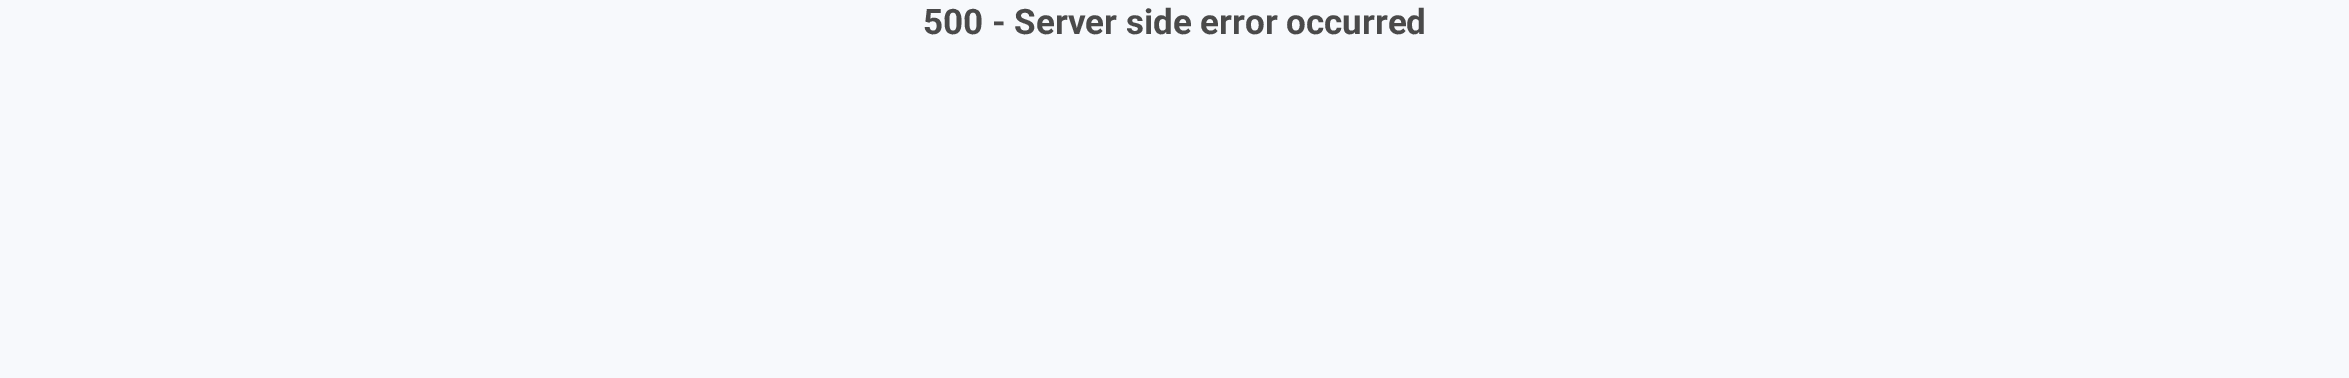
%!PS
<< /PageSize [2349 378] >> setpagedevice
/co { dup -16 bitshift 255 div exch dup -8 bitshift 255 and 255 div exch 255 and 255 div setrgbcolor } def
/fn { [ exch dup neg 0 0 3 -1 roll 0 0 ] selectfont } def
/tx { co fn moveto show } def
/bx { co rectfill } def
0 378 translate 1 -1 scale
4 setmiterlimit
0 0 2349 378 16#F7F9FC bx
(500 - Server side error occurred) 923 34 /Roboto-Bold 35 16#4A4A4A tx
showpage
